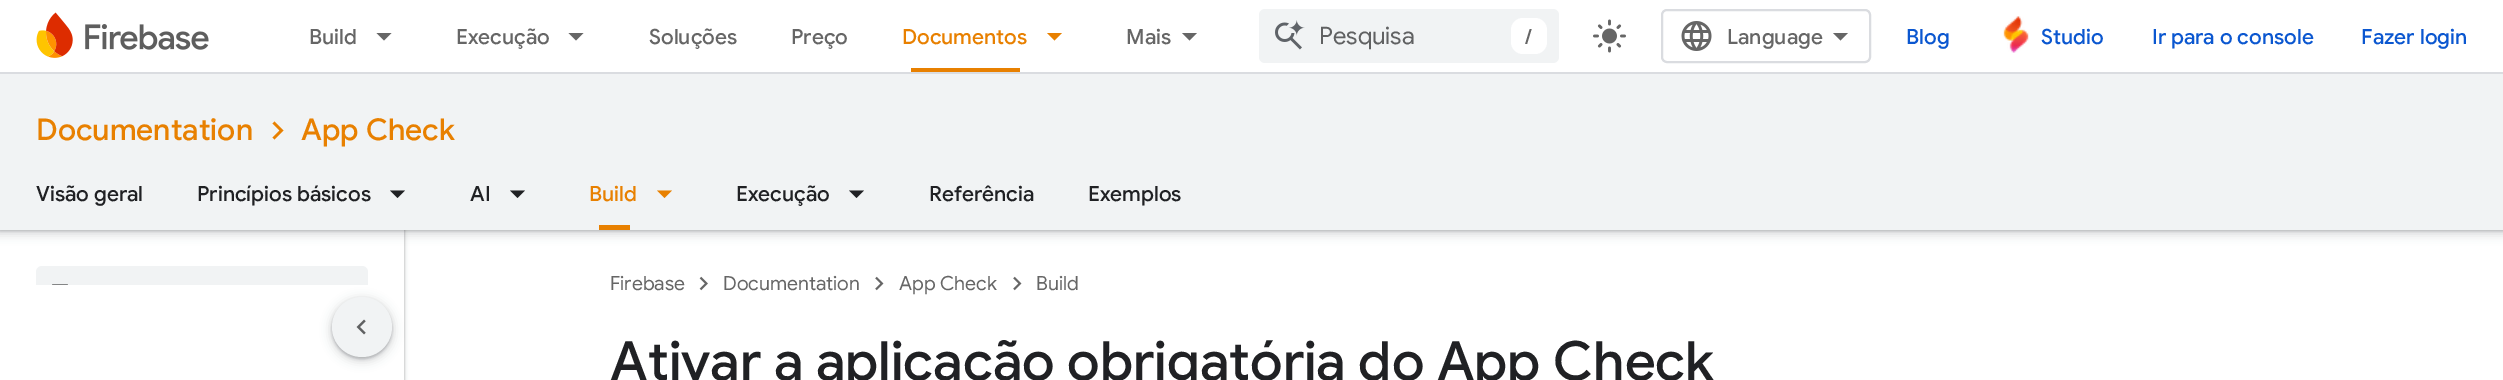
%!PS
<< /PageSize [2503 380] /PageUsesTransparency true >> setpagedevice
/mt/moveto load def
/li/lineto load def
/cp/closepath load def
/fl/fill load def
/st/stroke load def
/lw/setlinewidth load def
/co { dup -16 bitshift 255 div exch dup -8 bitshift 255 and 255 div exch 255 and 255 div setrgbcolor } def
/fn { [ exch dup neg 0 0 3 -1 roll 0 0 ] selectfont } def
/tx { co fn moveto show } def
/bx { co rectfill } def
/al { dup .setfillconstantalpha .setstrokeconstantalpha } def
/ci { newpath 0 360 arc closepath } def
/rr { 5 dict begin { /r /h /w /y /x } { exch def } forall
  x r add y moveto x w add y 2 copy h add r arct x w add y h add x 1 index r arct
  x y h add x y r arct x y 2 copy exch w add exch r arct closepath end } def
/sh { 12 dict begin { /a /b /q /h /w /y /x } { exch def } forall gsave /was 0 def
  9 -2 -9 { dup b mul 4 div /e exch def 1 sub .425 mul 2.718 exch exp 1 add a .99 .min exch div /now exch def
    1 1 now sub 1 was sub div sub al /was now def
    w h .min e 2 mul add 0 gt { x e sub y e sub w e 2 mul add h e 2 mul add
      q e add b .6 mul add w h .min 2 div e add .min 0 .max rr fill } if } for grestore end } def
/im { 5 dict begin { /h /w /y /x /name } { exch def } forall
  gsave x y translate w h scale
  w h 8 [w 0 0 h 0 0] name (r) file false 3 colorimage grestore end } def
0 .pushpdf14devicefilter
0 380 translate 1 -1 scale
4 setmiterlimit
0 0 2503 380 16#FFFFFF bx
16#3C4043 co
-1 0 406 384 0 2 .15 sh
0 2 404 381 0 1.5 .3 sh
0 230 404 55 16#FFFFFF bx
16#3C4043 co
-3 74 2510 162 0 4.5 .15 sh
0 75 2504 156 0 1.5 .3 sh
0 0 2503 72 16#FFFFFF bx
0 72 2503 2 16#DADCE0 bx
(media/1.raw) 36 12 173 46 im
16#666666 co
376.5 33 mt 391.5 33 li 384 40.5 li cp fl
568.5 33 mt 583.5 33 li 576 40.5 li cp fl
911 68 109 4 16#E88000 bx
1047 33 mt 1062 33 li 1054.5 40.5 li cp fl
16#666666 co
1182 33 mt 1197 33 li 1189.5 40.5 li cp fl
16#F1F3F4 co
1259 9 300 54 6 rr fl
(media/2.raw) 1275 20 30 30 im
16#FFFFFF co
1511 18 36 36 12 rr fl
(media/3.raw) 1593 19 33 34 im
16#DADCE0 co
2 lw
1662 10 208 52 5 rr st
(media/4.raw) 1681 21 31 30 im
16#666666 co
1840.5 40.5 mt 1833 33 li 1848 33 li cp fl
(media/5.raw) 2003 16 26 37 im
0 74 2503 156 16#F1F3F4 bx
16#E88000 co
274.5 121.5 mt 283.5 130.5 li 274.5 139.5 li 272.5 137.5 li 279.5 130.5 li 272.5 123.5 li cp fl
16#202124 co
390 190.5 mt 405 190.5 li 397.5 198 li cp fl
510 190.5 mt 525 190.5 li 517.5 198 li cp fl
599 225 31 5 16#E88000 bx
657 190.5 mt 672 190.5 li 664.5 198 li cp fl
16#202124 co
849 190.5 mt 864 190.5 li 856.5 198 li cp fl
16#F1F3F4 co
36 266 332 48 6 rr fl
(media/6.raw) 52 284 16 1 im
(media/7.raw) 699 276 9 15 im
(media/8.raw) 875 276 9 15 im
(media/8.raw) 1013 276 9 15 im
0 285 404 95 16#FFFFFF bx
16#3C4043 co
329 297 66 66 33 4.5 .15 sh
332 299 60 60 30 1.5 .3 sh
16#F1F3F4 co
362 327 30 ci fl
(media/9.raw) 356 319 10 16 im
(Build) 309 44 /GoogleSans-Medium 21 16#666666 tx
(Execução) 456 44 /GoogleSans-Medium 21 16#666666 tx
(Soluções) 649 44 /GoogleSans-Medium 21 16#666666 tx
(Preço) 791 44 /GoogleSans-Medium 21 16#666666 tx
(Documentos) 902 44 /GoogleSans-Medium 21 16#E88000 tx
(Mais) 1126 44 /GoogleSans-Medium 21 16#666666 tx
(Pesquisa) 1319 44 /GoogleSans-Regular 24 16#606162 tx
(/) 1525 44 /GoogleSans-Medium 21 16#666666 tx
(Language) 1727 44 /GoogleSans-Medium 21 16#666666 tx
(Blog) 1906 44 /GoogleSans-Medium 21 16#0B57D0 tx
(Studio) 2041 44 /GoogleSans-Medium 21 16#0B57D0 tx
(Ir para o console) 2152 44 /GoogleSans-Medium 21 16#0B57D0 tx
(Fazer login) 2361 44 /GoogleSans-Medium 21 16#0B57D0 tx
(Documentation) 36 140 /GoogleSans-Medium 30 16#E88000 tx
(App Check) 301 140 /GoogleSans-Medium 30 16#E88000 tx
(Visão geral) 36 201 /GoogleSans-Medium 21 16#202124 tx
(Princípios básicos) 197 201 /GoogleSans-Medium 21 16#202124 tx
(AI) 470 201 /GoogleSans-Medium 21 16#202124 tx
(Build) 589 201 /GoogleSans-Medium 21 16#E88000 tx
(Execução) 736 201 /GoogleSans-Medium 21 16#202124 tx
(Referência) 929 201 /GoogleSans-Medium 21 16#202124 tx
(Exemplos) 1088 201 /GoogleSans-Medium 21 16#202124 tx
(Firebase) 610 290 /GoogleSans-Regular 19.5 16#666666 tx
(Documentation) 723 290 /GoogleSans-Regular 19.5 16#666666 tx
(App Check) 899 290 /GoogleSans-Regular 19.5 16#666666 tx
(Build) 1036 290 /GoogleSans-Regular 19.5 16#666666 tx
(Ativar a aplicação obrigatória do App Check) 610 380 /GoogleSans-Medium 54 16#202124 tx
.poppdf14devicefilter showpage
